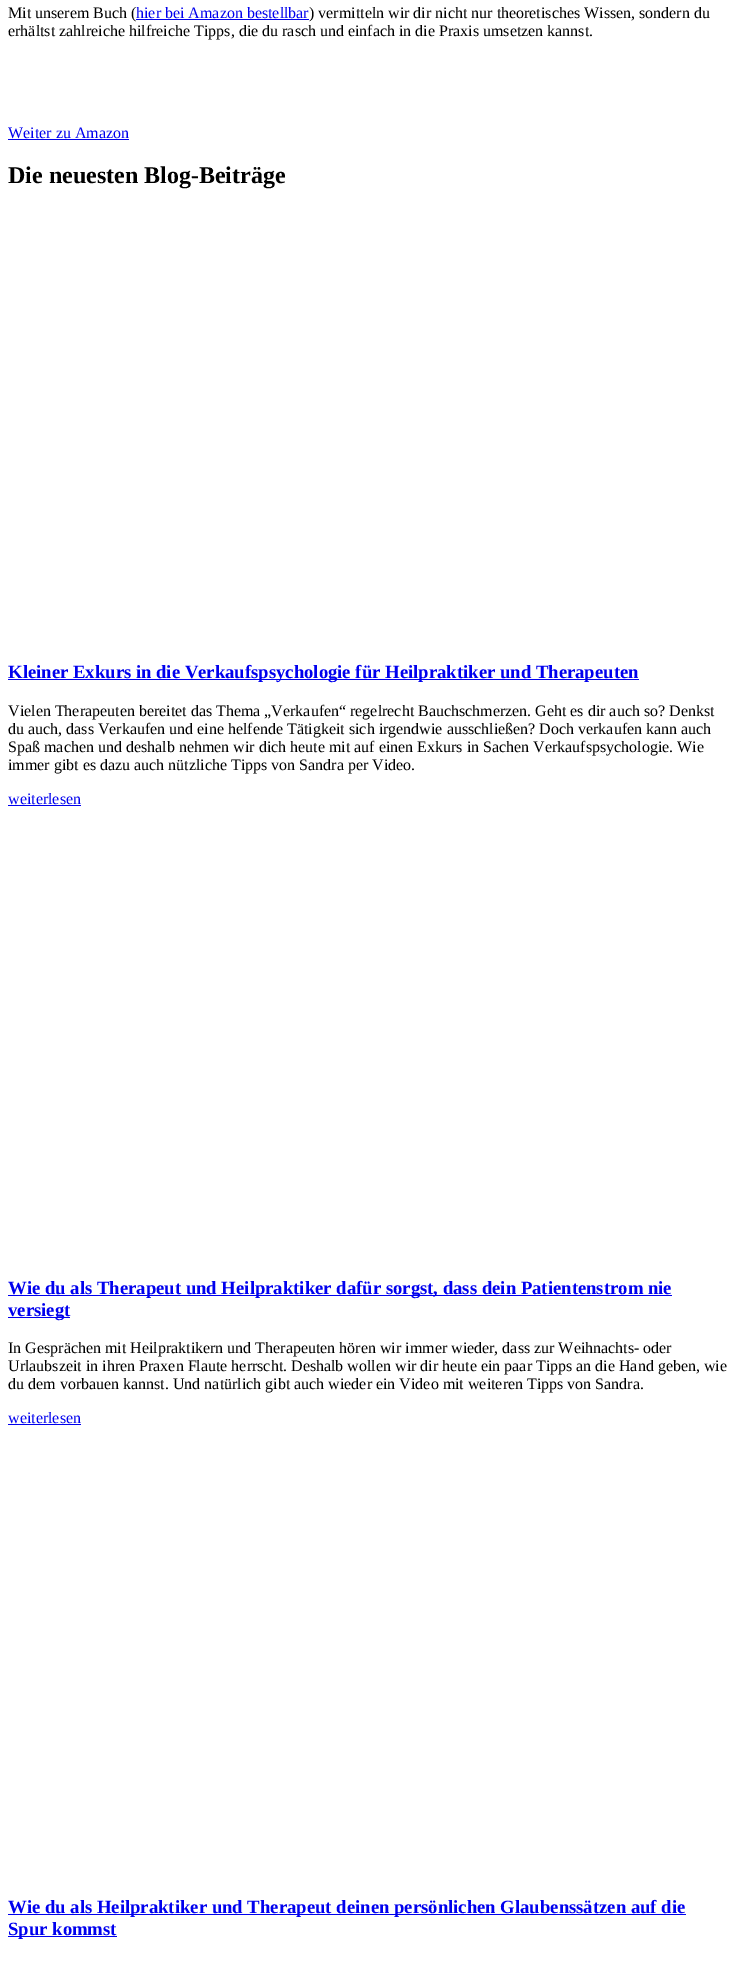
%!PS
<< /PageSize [735 1966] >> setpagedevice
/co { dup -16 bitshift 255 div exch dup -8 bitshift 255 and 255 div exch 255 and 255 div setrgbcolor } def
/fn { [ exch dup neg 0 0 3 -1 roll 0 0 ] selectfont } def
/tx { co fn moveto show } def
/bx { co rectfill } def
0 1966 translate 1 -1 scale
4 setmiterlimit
0 0 735 1966 16#FFFFFF bx
136 19 173 1 16#0000EE bx
8 139 121 1 16#0000EE bx
8 679 631 1 16#0000EE bx
8 805 73 1 16#0000EE bx
8 1295 664 1 16#0000EE bx
8 1317 62 1 16#0000EE bx
8 1424 73 1 16#0000EE bx
8 1914 678 1 16#0000EE bx
8 1936 109 1 16#0000EE bx
(Mit unserem Buch \() 8 18 /LiberationSerif-Regular 16 16#000000 tx
(hier bei Amazon bestellbar) 136 18 /LiberationSerif-Regular 16 16#0000EE tx
(\) vermitteln wir dir nicht nur theoretisches Wissen, sondern du) 309 18 /LiberationSerif-Regular 16 16#000000 tx
(erhältst zahlreiche hilfreiche Tipps, die du rasch und einfach in die Praxis umsetzen kannst.) 8 36 /LiberationSerif-Regular 16 16#000000 tx
(Weiter zu Amazon) 8 138 /LiberationSerif-Regular 16 16#0000EE tx
(Die neuesten Blog-Beiträge) 8 183 /LiberationSerif-Bold 24 16#000000 tx
(Kleiner Exkurs in die Verkaufspsychologie für Heilpraktiker und Therapeuten) 8 678 /LiberationSerif-Bold 18.7 16#0000EE tx
(Vielen Therapeuten bereitet das Thema „Verkaufen“ regelrecht Bauchschmerzen. Geht es dir auch so? Denkst) 8 716 /LiberationSerif-Regular 16 16#000000 tx
(du auch, dass Verkaufen und eine helfende Tätigkeit sich irgendwie ausschließen? Doch verkaufen kann auch) 8 734 /LiberationSerif-Regular 16 16#000000 tx
(Spaß machen und deshalb nehmen wir dich heute mit auf einen Exkurs in Sachen Verkaufspsychologie. Wie) 8 752 /LiberationSerif-Regular 16 16#000000 tx
(immer gibt es dazu auch nützliche Tipps von Sandra per Video.) 8 770 /LiberationSerif-Regular 16 16#000000 tx
(weiterlesen) 8 804 /LiberationSerif-Regular 16 16#0000EE tx
(Wie du als Therapeut und Heilpraktiker dafür sorgst, dass dein Patientenstrom nie) 8 1294 /LiberationSerif-Bold 18.7 16#0000EE tx
(versiegt) 8 1316 /LiberationSerif-Bold 18.7 16#0000EE tx
(In Gesprächen mit Heilpraktikern und Therapeuten hören wir immer wieder, dass zur Weihnachts- oder) 8 1353 /LiberationSerif-Regular 16 16#000000 tx
(Urlaubszeit in ihren Praxen Flaute herrscht. Deshalb wollen wir dir heute ein paar Tipps an die Hand geben, wie) 8 1371 /LiberationSerif-Regular 16 16#000000 tx
(du dem vorbauen kannst. Und natürlich gibt auch wieder ein Video mit weiteren Tipps von Sandra.) 8 1389 /LiberationSerif-Regular 16 16#000000 tx
(weiterlesen) 8 1423 /LiberationSerif-Regular 16 16#0000EE tx
(Wie du als Heilpraktiker und Therapeut deinen persönlichen Glaubenssätzen auf die) 8 1913 /LiberationSerif-Bold 18.7 16#0000EE tx
(Spur kommst) 8 1935 /LiberationSerif-Bold 18.7 16#0000EE tx
showpage
